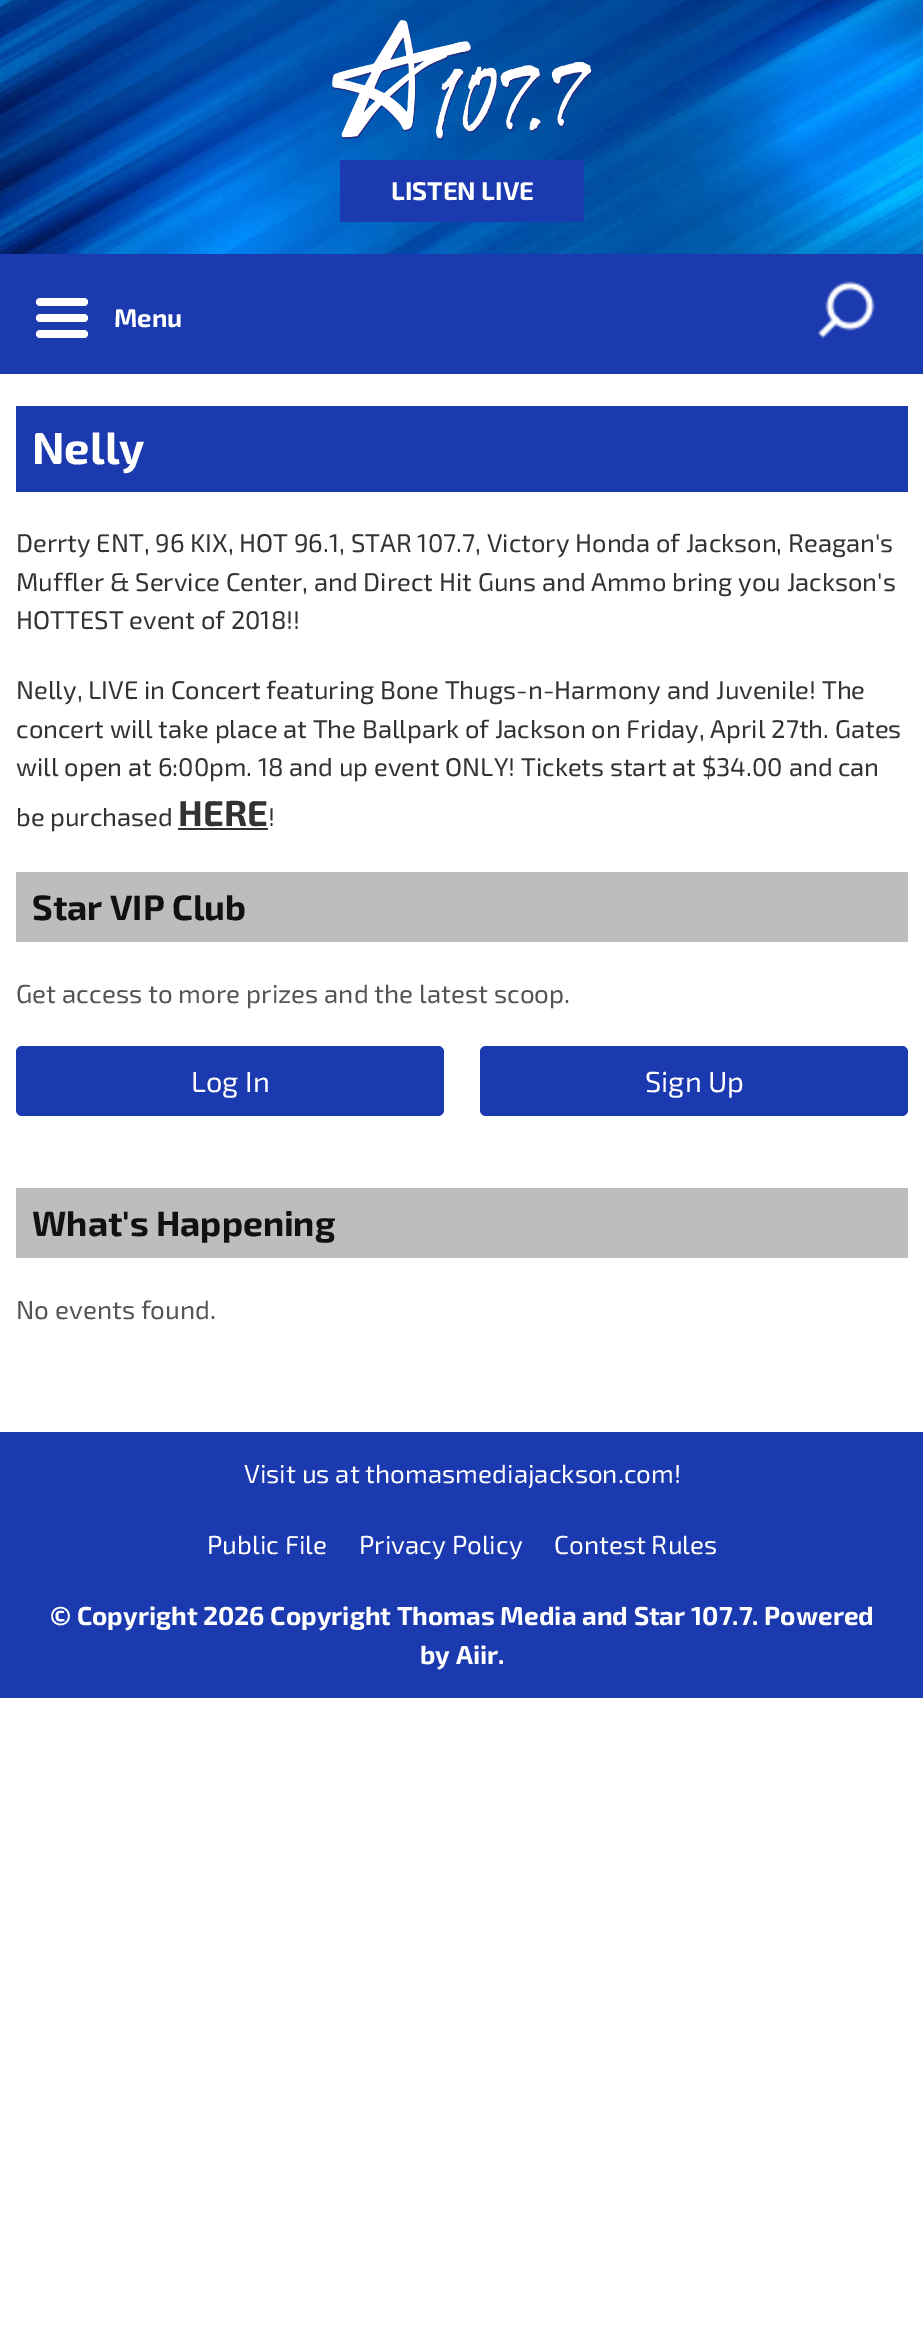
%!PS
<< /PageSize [923 2338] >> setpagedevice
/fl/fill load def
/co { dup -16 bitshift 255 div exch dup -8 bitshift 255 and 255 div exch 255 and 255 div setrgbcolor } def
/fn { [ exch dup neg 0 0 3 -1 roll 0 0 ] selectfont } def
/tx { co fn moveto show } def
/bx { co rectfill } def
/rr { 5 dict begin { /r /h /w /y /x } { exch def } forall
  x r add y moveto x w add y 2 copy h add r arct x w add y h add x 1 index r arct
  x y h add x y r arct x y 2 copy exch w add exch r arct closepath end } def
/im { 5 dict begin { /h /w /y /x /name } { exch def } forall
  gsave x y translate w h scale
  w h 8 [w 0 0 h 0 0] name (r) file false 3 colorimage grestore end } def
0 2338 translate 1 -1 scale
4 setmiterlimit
0 0 923 2338 16#FFFFFF bx
(media/1.raw) 0 0 923 254 im
(media/2.raw) 332 20 260 120 im
340 160 244 62 16#1C3AB0 bx
0 254 923 120 16#1C3AB0 bx
16#FFFFFF co
36 298 52 8 4 rr fl
36 314 52 8 4 rr fl
36 330 52 8 4 rr fl
(media/3.raw) 817 281 58 58 im
16 406 892 86 16#1C3AB0 bx
178 828 90 2 16#333333 bx
16 872 892 70 16#BDBDBD bx
16#1C3AB0 co
16 1046 428 70 6 rr fl
480 1046 428 70 6 rr fl
16 1188 892 70 16#BDBDBD bx
0 1432 923 266 16#1C3AB0 bx
(LISTEN LIVE) 391 200 /Exo2-Bold 25.6 16#FFFFFF tx
(Menu) 114 327 /Exo2-Bold 25.6 16#FFFFFF tx
(Nelly) 32 464 /Exo2-Bold 45 16#FFFFFF tx
(Derrty ENT, 96 KIX, HOT 96.1, STAR 107.7, Victory Honda of Jackson, Reagan's) 16 552 /Exo2-Regular 25.6 16#333333 tx
(Muffler & Service Center, and Direct Hit Guns and Ammo bring you Jackson's) 16 591 /Exo2-Regular 25.6 16#333333 tx
(HOTTEST event of 2018!!) 16 629 /Exo2-Regular 25.6 16#333333 tx
(Nelly, LIVE in Concert featuring Bone Thugs-n-Harmony and Juvenile! The) 16 699 /Exo2-Regular 25.6 16#333333 tx
(concert will take place at The Ballpark of Jackson on Friday, April 27th. Gates) 16 738 /Exo2-Regular 25.6 16#333333 tx
(will open at 6:00pm. 18 and up event ONLY! Tickets start at $34.00 and can) 16 776 /Exo2-Regular 25.6 16#333333 tx
(be purchased) 16 826 /Exo2-Regular 25.6 16#333333 tx
(HERE) 178 826 /Exo2-Bold 36 16#333333 tx
(!) 268 826 /Exo2-Regular 25.6 16#333333 tx
(Star VIP Club) 32 920 /Exo2-Bold 35.25 16#111111 tx
(Get access to more prizes and the latest scoop.) 16 1003 /Exo2-Regular 26 16#555555 tx
(Log In) 191 1092 /Exo2-Regular 29 16#FFFFFF tx
(Sign Up) 645 1092 /Exo2-Regular 29 16#FFFFFF tx
(What's Happening) 32 1236 /Exo2-Bold 35.25 16#111111 tx
(No events found.) 16 1319 /Exo2-Regular 26 16#555555 tx
(Visit us at thomasmediajackson.com!) 244 1483 /Exo2-Regular 26 16#FFFFFF tx
(Public File) 207 1554 /Exo2-Regular 26 16#FFFFFF tx
(Privacy Policy) 359 1554 /Exo2-Regular 26 16#FFFFFF tx
(Contest Rules) 554 1554 /Exo2-Regular 26 16#FFFFFF tx
(© Copyright 2026 Copyright Thomas Media and Star 107.7. Powered) 50 1625 /Exo2-Bold 26 16#FFFFFF tx
(by Aiir.) 420 1664 /Exo2-Bold 26 16#FFFFFF tx
showpage
